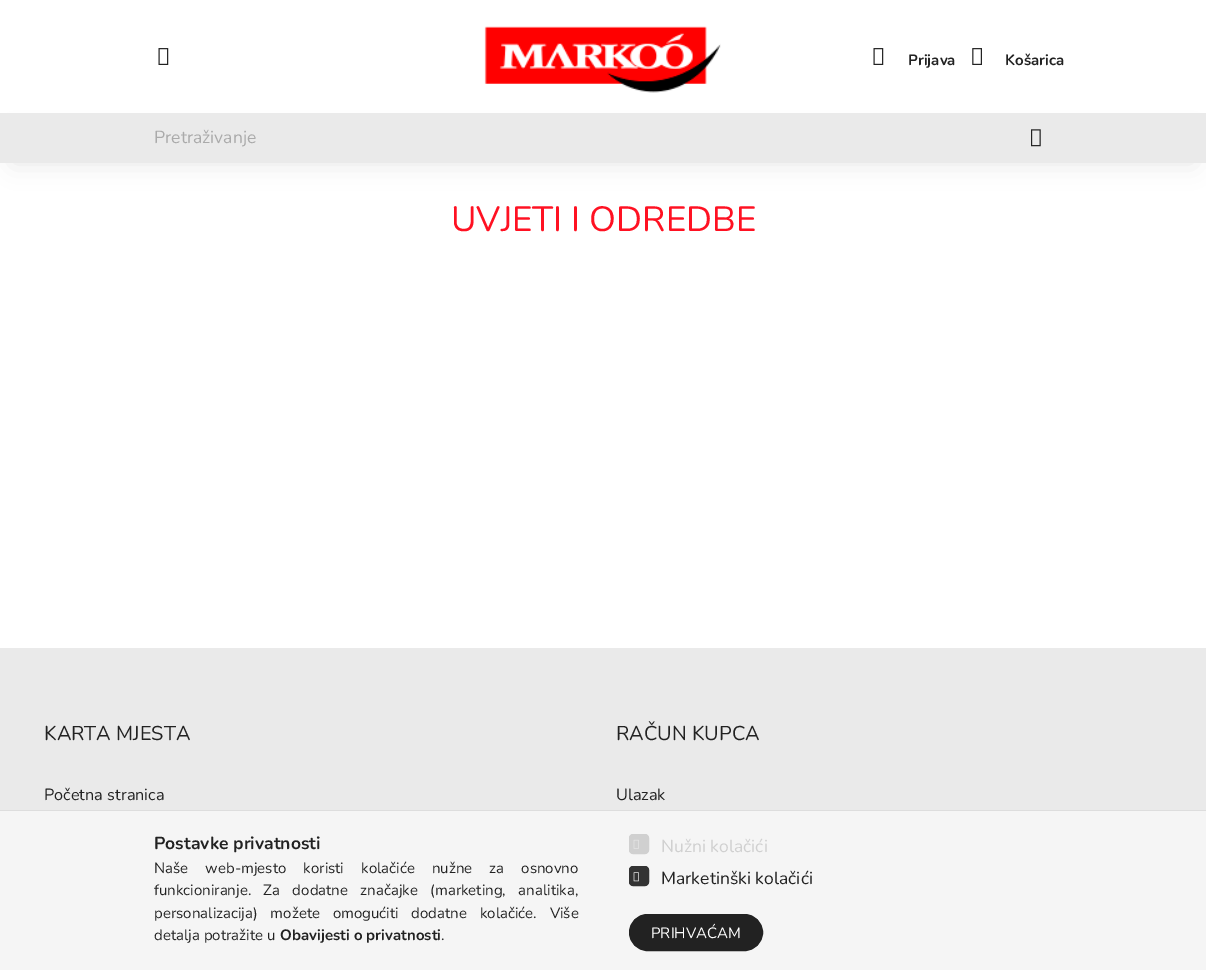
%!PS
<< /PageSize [1206 970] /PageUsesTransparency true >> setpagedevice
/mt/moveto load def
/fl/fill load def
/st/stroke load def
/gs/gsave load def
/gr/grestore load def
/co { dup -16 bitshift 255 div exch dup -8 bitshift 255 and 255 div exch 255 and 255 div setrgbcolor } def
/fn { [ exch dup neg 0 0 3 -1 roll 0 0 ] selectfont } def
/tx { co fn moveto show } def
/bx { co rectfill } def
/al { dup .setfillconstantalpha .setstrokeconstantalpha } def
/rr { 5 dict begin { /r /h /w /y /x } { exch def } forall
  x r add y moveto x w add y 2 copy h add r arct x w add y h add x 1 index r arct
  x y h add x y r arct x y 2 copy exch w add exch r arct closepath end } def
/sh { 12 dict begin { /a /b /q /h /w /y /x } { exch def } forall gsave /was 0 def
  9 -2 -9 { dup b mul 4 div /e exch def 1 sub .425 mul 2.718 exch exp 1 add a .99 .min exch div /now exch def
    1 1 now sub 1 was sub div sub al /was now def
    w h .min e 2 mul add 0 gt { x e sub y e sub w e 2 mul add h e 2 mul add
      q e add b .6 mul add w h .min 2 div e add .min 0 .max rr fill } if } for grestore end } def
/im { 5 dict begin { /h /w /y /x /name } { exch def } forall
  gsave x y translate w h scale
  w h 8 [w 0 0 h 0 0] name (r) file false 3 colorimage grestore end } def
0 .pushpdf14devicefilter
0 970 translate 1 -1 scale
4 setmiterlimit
0 0 1206 970 16#FFFFFF bx
(media/1.raw) 158 48 11 17 im
(media/2.raw) 484 26 237 67 im
(media/1.raw) 873 48 11 17 im
(media/3.raw) 972 48 10 17 im
16#000000 co
13 138 1181 25 0 12.5 .1 sh
0 113 1206 50 16#EAEAEA bx
(media/4.raw) 1031 129 10 18 im
0 648 1206 162 16#EAEAEA bx
0 811 1206 159 16#F5F5F5 bx
0 810 1206 1 16#DDDDDD bx
16#D0D0D0 co
629.5 834.5 19 19 3.5 rr gs fl gr
st
(media/5.raw) 633 839 6 10 im
16#333333 co
629.5 866.5 19 19 3.5 rr gs fl gr
st
(media/6.raw) 633 872 6 10 im
16#222222 co
629.5 914.5 133 36 18 rr gs fl gr
st
(Prijava) 908 65 /Nunito-Bold 15 16#222222 tx
(Košarica) 1005 65 /Nunito-Bold 15 16#222222 tx
(Pretraživanje) 154 143 /Nunito-Regular 17.5 16#AAAAAA tx
(UVJETI I ODREDBE) 451 231 /Nunito-Regular 35 16#FF1122 tx
(KARTA MJESTA) 44 740 /Nunito-Regular 20 16#222222 tx
(Početna stranica) 44 800 /Nunito-Regular 16.25 16#222222 tx
(RAČUN KUPCA) 616 740 /Nunito-Regular 20 16#222222 tx
(Ulazak) 616 800 /Nunito-Regular 16.25 16#222222 tx
(Postavke privatnosti) 154 849 /Nunito-Bold 17.5 16#222222 tx
/Nunito-Regular 15 fn
154 873 mt 13.25 0 32 (Naše web-mjesto koristi kolačiće nužne za osnovno) widthshow
154 895 mt 8.5 0 32 (funkcioniranje. Za dodatne značajke \(marketing, analitika,) widthshow
154 918 mt 9 0 32 (personalizacija\) možete omogućiti dodatne kolačiće. Više) widthshow
(detalja potražite u) 154 940 /Nunito-Regular 15 16#222222 tx
(Obavijesti o privatnosti) 280 940 /Nunito-Bold 15 16#222222 tx
(.) 441 940 /Nunito-Regular 15 16#222222 tx
(Nužni kolačići) 661 852 /Nunito-Regular 17.5 16#D0D0D0 tx
(Marketinški kolačići) 661 884 /Nunito-Regular 17.5 16#222222 tx
(PRIHVAĆAM) 651 938 /Nunito-Regular 15 16#FFFFFF tx
.poppdf14devicefilter showpage
